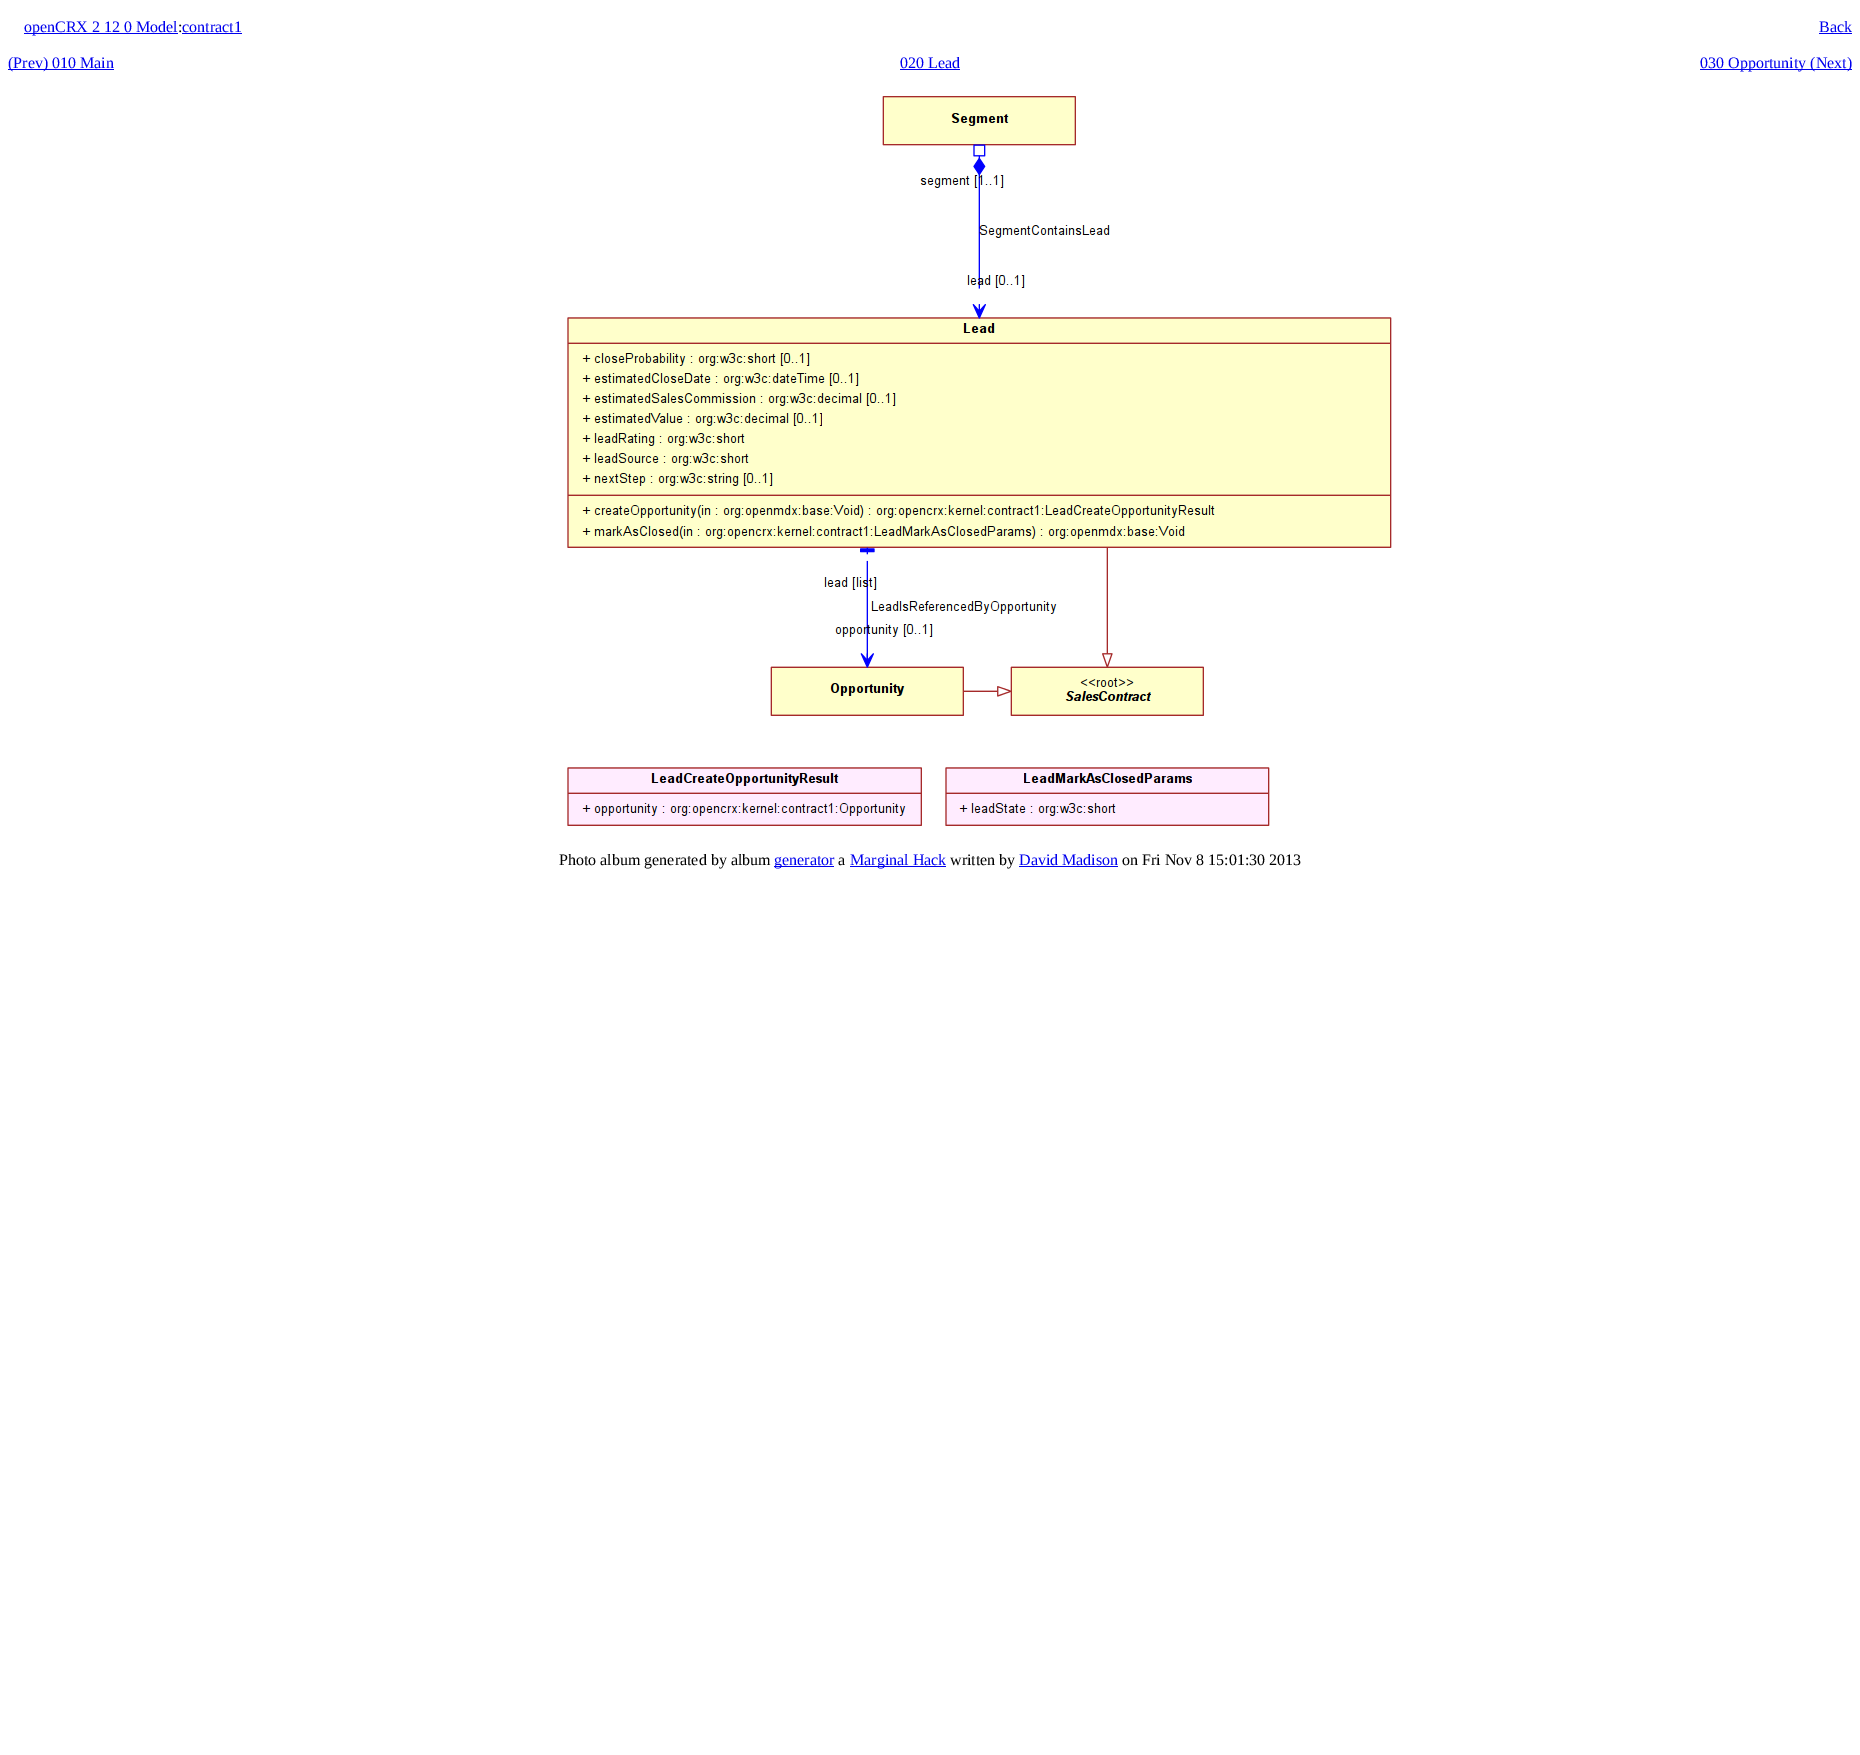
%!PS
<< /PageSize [1860 1755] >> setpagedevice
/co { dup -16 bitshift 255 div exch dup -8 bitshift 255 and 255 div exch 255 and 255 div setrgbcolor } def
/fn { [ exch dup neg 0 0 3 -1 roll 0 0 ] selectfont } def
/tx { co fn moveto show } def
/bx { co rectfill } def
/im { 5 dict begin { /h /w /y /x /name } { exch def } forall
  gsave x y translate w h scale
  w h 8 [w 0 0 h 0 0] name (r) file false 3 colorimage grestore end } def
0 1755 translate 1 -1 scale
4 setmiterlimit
0 0 1860 1755 16#FFFFFF bx
24 33 154 1 16#0000EE bx
182 33 60 1 16#0000EE bx
1819 33 33 1 16#0000EE bx
8 69 106 1 16#0000EE bx
900 69 60 1 16#0000EE bx
1700 69 152 1 16#0000EE bx
(media/1.raw) 567 96 825 730 im
774 866 60 1 16#0000EE bx
850 866 96 1 16#0000EE bx
1019 866 99 1 16#0000EE bx
(openCRX 2 12 0 Model) 24 32 /LiberationSerif-Regular 16 16#0000EE tx
(:) 178 32 /LiberationSerif-Regular 16 16#000000 tx
(contract1) 182 32 /LiberationSerif-Regular 16 16#0000EE tx
(Back) 1819 32 /LiberationSerif-Regular 16 16#0000EE tx
(\(Prev\) 010 Main) 8 68 /LiberationSerif-Regular 16 16#0000EE tx
(020 Lead) 900 68 /LiberationSerif-Regular 16 16#0000EE tx
(030 Opportunity \(Next\)) 1700 68 /LiberationSerif-Regular 16 16#0000EE tx
(Photo album generated by album) 559 865 /LiberationSerif-Regular 16 16#000000 tx
(generator) 774 865 /LiberationSerif-Regular 16 16#0000EE tx
(a) 838 865 /LiberationSerif-Regular 16 16#000000 tx
(Marginal Hack) 850 865 /LiberationSerif-Regular 16 16#0000EE tx
(written by) 950 865 /LiberationSerif-Regular 16 16#000000 tx
(David Madison) 1019 865 /LiberationSerif-Regular 16 16#0000EE tx
(on Fri Nov 8 15:01:30 2013) 1122 865 /LiberationSerif-Regular 16 16#000000 tx
showpage
